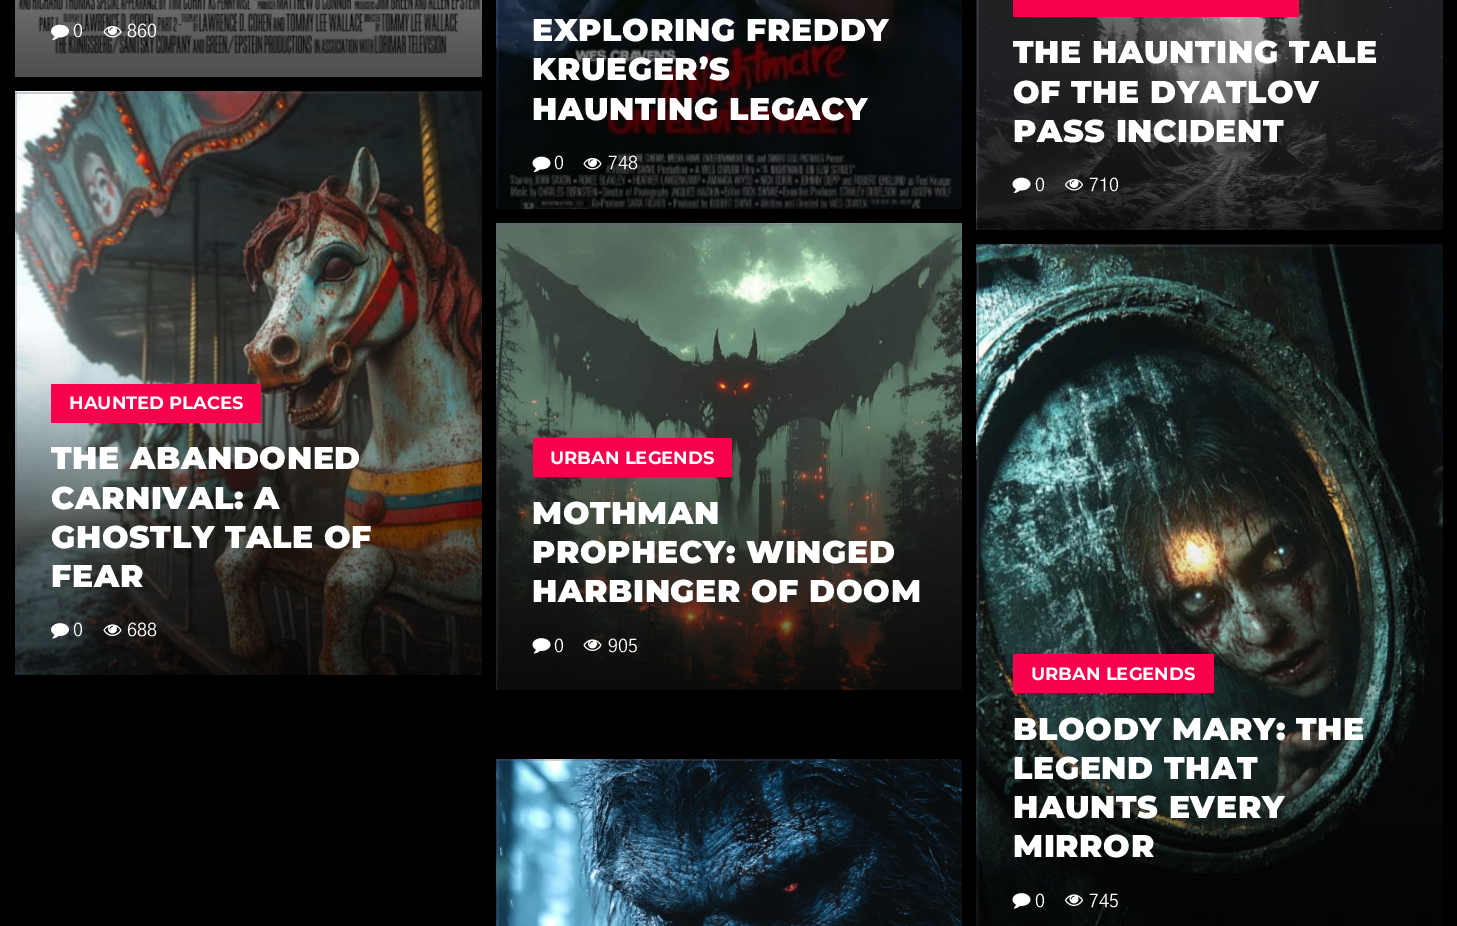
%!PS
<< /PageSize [1457 926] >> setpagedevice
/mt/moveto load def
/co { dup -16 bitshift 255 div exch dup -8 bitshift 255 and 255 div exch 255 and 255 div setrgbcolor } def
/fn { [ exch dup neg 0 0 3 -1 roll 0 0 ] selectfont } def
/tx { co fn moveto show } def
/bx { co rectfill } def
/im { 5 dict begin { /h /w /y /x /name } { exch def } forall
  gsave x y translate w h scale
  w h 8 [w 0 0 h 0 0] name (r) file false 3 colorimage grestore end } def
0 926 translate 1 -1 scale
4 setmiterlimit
0 0 1457 926 16#000000 bx
(media/1.raw) 15 0 467 77 im
(media/2.raw) 51 24 18 16 im
(media/3.raw) 103 25 19 13 im
(media/4.raw) 496 0 466 209 im
(media/5.raw) 532 156 19 16 im
(media/6.raw) 583 157 19 13 im
(media/7.raw) 976 0 467 230 im
1013 0 286 17 16#F8014C bx
(media/8.raw) 1012 177 19 16 im
(media/9.raw) 1065 178 18 13 im
(media/10.raw) 15 91 467 584 im
51 384 210 39 16#F8014C bx
(media/11.raw) 51 623 18 16 im
(media/12.raw) 103 624 19 12 im
(media/13.raw) 496 223 466 467 im
533 438 199 39 16#F8014C bx
(media/14.raw) 532 638 19 16 im
(media/15.raw) 583 639 19 12 im
(media/16.raw) 496 759 466 167 im
(media/17.raw) 976 244 467 682 im
1013 654 201 39 16#F8014C bx
(media/18.raw) 1012 893 19 16 im
(media/19.raw) 1065 894 18 12 im
(0) 73 37 /GothicA1-Regular 18 16#FFFFFF tx
(860) 127 37 /GothicA1-Regular 18 16#FFFFFF tx
/Montserrat-Black 31.5 fn
532 41 mt .6 0 (EXPLORING FREDDY) ashow
532 80 mt .6 0 (KRUEGER’S) ashow
532 120 mt .6 0 (HAUNTING LEGACY) ashow
(0) 554 169 /GothicA1-Regular 18 16#FFFFFF tx
(748) 608 169 /GothicA1-Regular 18 16#FFFFFF tx
/Montserrat-Black 31.5 fn
1013 63 mt .6 0 (THE HAUNTING TALE) ashow
1013 103 mt .6 0 (OF THE DYATLOV) ashow
1013 142 mt .6 0 (PASS INCIDENT) ashow
(0) 1035 191 /GothicA1-Regular 18 16#FFFFFF tx
(710) 1089 191 /GothicA1-Regular 18 16#FFFFFF tx
(HAUNTED PLACES) 69 409 /Montserrat-Bold 18 16#FFFFFF tx
/Montserrat-Black 31.5 fn
51 469 mt .6 0 (THE ABANDONED) ashow
51 509 mt .6 0 (CARNIVAL: A) ashow
51 548 mt .6 0 (GHOSTLY TALE OF) ashow
51 587 mt .6 0 (FEAR) ashow
(0) 73 636 /GothicA1-Regular 18 16#FFFFFF tx
(688) 127 636 /GothicA1-Regular 18 16#FFFFFF tx
(URBAN LEGENDS) 550 464 /Montserrat-Bold 18 16#FFFFFF tx
/Montserrat-Black 31.5 fn
532 524 mt .6 0 (MOTHMAN) ashow
532 563 mt .6 0 (PROPHECY: WINGED) ashow
532 602 mt .6 0 (HARBINGER OF DOOM) ashow
(0) 554 652 /GothicA1-Regular 18 16#FFFFFF tx
(905) 608 652 /GothicA1-Regular 18 16#FFFFFF tx
(URBAN LEGENDS) 1031 680 /Montserrat-Bold 18 16#FFFFFF tx
/Montserrat-Black 31.5 fn
1013 740 mt .6 0 (BLOODY MARY: THE) ashow
1013 779 mt .6 0 (LEGEND THAT) ashow
1013 818 mt .6 0 (HAUNTS EVERY) ashow
1013 857 mt .6 0 (MIRROR) ashow
(0) 1035 907 /GothicA1-Regular 18 16#FFFFFF tx
(745) 1089 907 /GothicA1-Regular 18 16#FFFFFF tx
showpage
